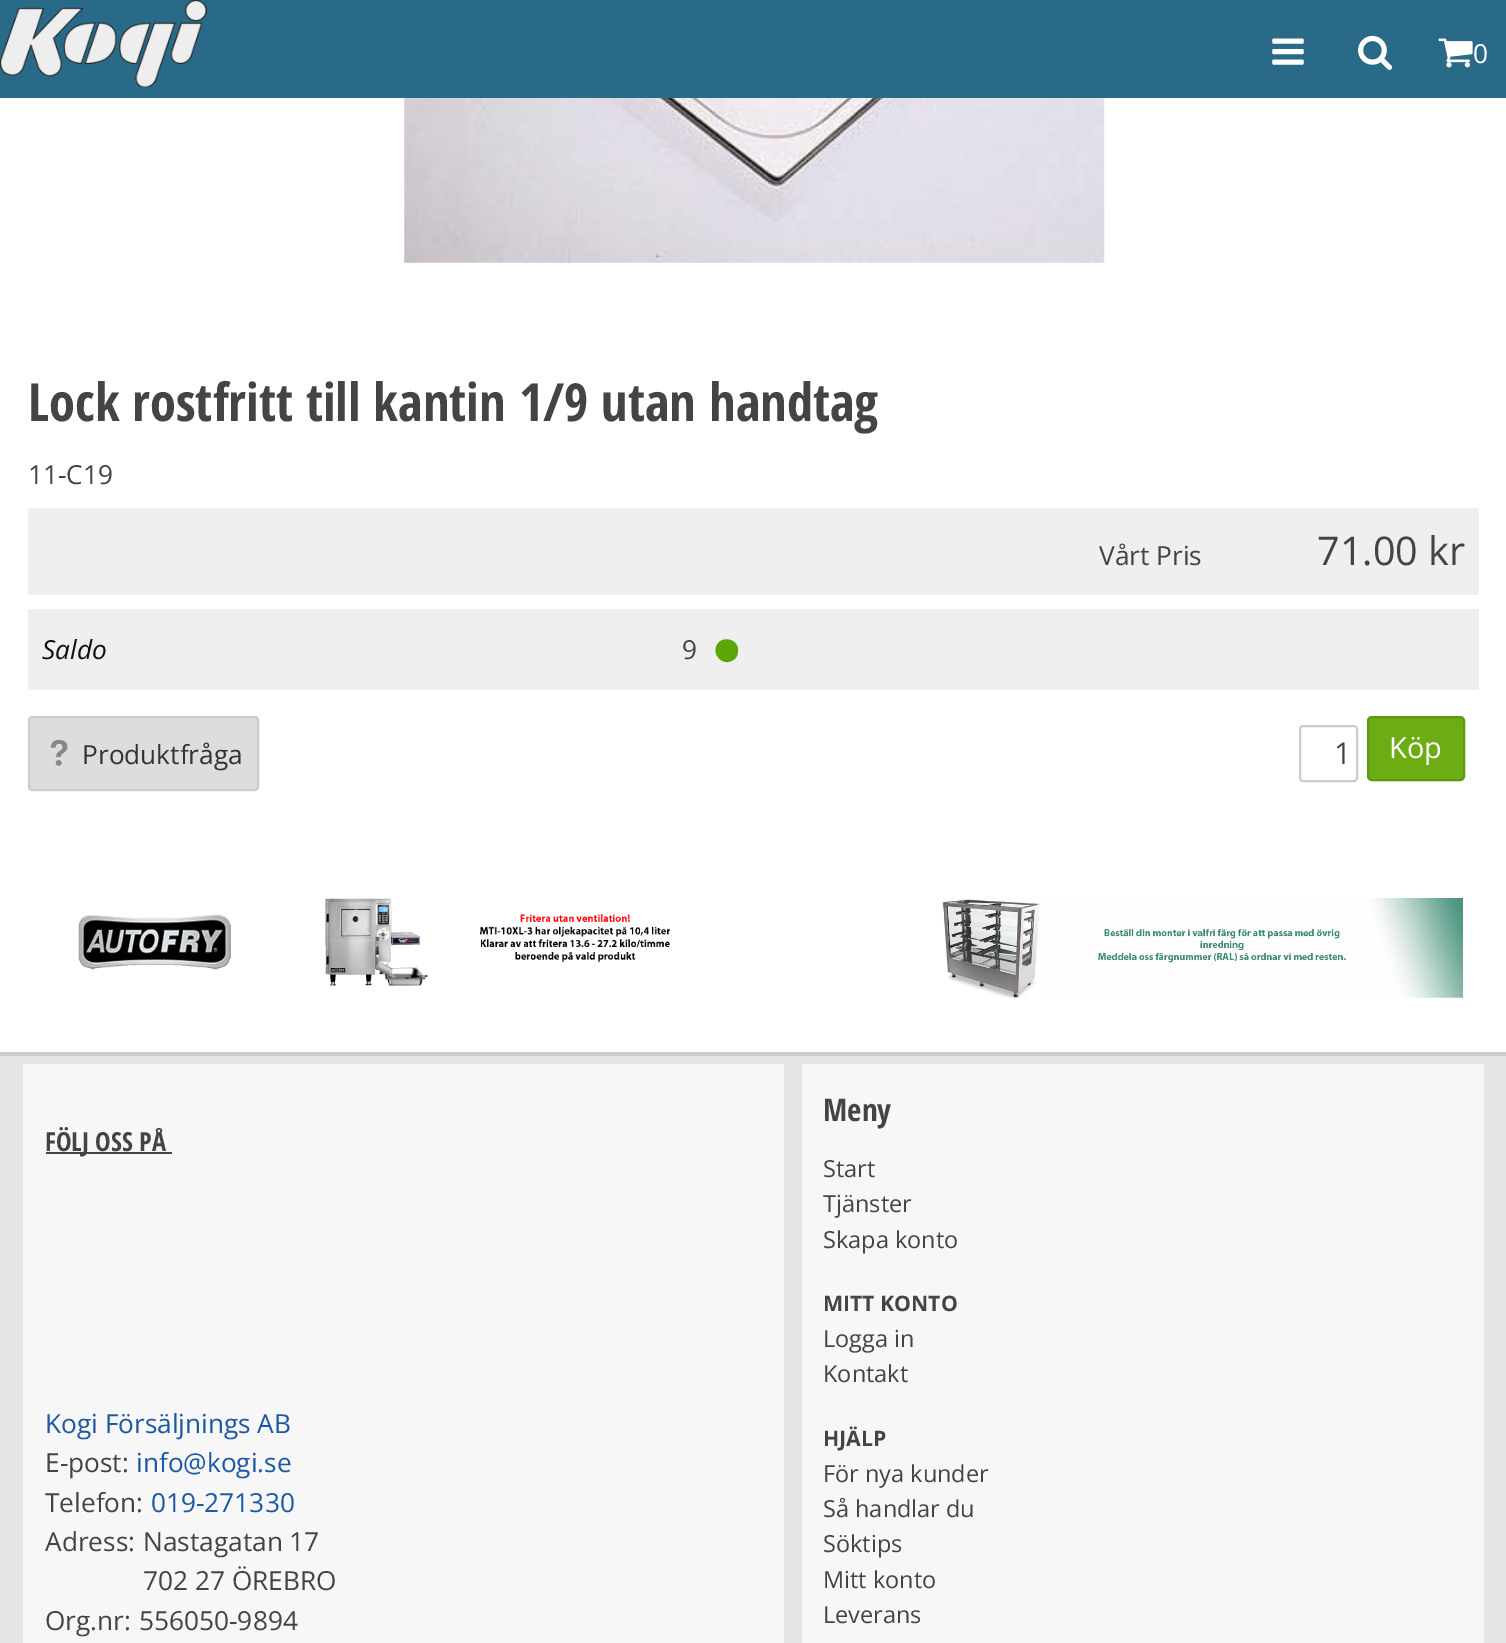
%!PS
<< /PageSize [1506 1643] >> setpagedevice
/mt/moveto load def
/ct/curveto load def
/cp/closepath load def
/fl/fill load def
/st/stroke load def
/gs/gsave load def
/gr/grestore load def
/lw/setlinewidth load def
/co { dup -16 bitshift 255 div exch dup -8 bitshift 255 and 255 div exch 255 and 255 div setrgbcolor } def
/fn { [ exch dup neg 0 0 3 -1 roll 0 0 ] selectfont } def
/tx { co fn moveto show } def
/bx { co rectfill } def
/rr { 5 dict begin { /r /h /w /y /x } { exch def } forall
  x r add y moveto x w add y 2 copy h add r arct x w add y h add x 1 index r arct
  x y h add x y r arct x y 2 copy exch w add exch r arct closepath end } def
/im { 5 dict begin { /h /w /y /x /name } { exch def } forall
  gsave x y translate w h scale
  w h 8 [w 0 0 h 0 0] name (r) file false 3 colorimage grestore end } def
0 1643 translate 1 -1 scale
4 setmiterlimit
0 0 1506 1643 16#FFFFFF bx
0 0 1506 98 16#296A88 bx
(media/1.raw) 0 0 207 87 im
(media/2.raw) 1272 38 32 27 im
(media/3.raw) 1358 35 35 35 im
(media/4.raw) 1438 38 35 30 im
(media/5.raw) 404 98 701 165 im
28 508 1451 87 16#EFEFEF bx
28 609 1451 81 16#EFEFEF bx
16#5AA606 co
738 650.5 mt 738 654 737 657 734.5 659 ct 722.5 669.5 707.5 650.5 720.5 641 ct 728 636.5 738.5 641.5 738 650.5 ct cp fl
16#DDDDDD co
29 717 229 73 3 rr gs fl gr
16#CCCCCC co
2 lw
st
(media/6.raw) 50 739 18 27 im
1300 726 57 55 3 rr st
16#6CAD13 co
1368 717 96 63 4 rr gs fl gr
16#5E9610 co
st
(media/7.raw) 78 898 592 88 im
(media/8.raw) 940 898 523 100 im
0 1056 1506 587 16#E6E6E6 bx
0 1052 1506 4 16#CCCCCC bx
23 1064 761 579 16#F7F7F7 bx
46 1152 126 2 16#444444 bx
802 1064 682 579 16#F7F7F7 bx
(0) 1473 63 /OpenSans-Regular 26.25 16#FFFFFF tx
(Lock rostfritt till kantin 1/9 utan handtag) 28 421 /OpenSansCondensed-Bold 52.5 16#444444 tx
(11-C19) 28 484 /OpenSans-Regular 26.25 16#444444 tx
(Vårt Pris) 1099 565 /OpenSans-Regular 26.25 16#444444 tx
(71.00 kr) 1317 565 /OpenSans-Regular 39.5 16#444444 tx
(Saldo) 42 659 /OpenSans-Italic 26.25 16#111111 tx
(9) 682 659 /OpenSans-Regular 26.25 16#444444 tx
(Produktfråga) 82 764 /OpenSans-Regular 26.25 16#333333 tx
(1) 1334 764 /OpenSans-Regular 30 16#444444 tx
(Köp) 1389 758 /OpenSans-Regular 29 16#FFFFFF tx
(FÖLJ OSS PÅ) 45 1151 /OpenSansCondensed-Bold 26.25 16#444444 tx
(Kogi Försäljnings AB) 45 1433 /OpenSans-Regular 26.25 16#1B59A4 tx
(E-post:) 45 1472 /OpenSans-Regular 26.25 16#444444 tx
(info@kogi.se) 136 1472 /OpenSans-Regular 26.25 16#1B59A4 tx
(Telefon:) 45 1512 /OpenSans-Regular 26.25 16#444444 tx
(019-271330) 151 1512 /OpenSans-Regular 26.25 16#1B59A4 tx
(Adress:) 45 1551 /OpenSans-Regular 26.25 16#444444 tx
(Nastagatan 17) 143 1551 /OpenSans-Regular 26.25 16#444444 tx
(702 27 ÖREBRO) 143 1590 /OpenSans-Regular 26.25 16#444444 tx
(Org.nr:) 45 1630 /OpenSans-Regular 26.25 16#444444 tx
(556050-9894) 139 1630 /OpenSans-Regular 26.25 16#444444 tx
(Meny) 823 1121 /OpenSansCondensed-Bold 31 16#444444 tx
(Start) 823 1177 /OpenSans-Regular 23.5 16#444444 tx
(Tjänster) 823 1212 /OpenSans-Regular 23.5 16#444444 tx
(Skapa konto) 823 1248 /OpenSans-Regular 23.5 16#444444 tx
(MITT KONTO) 823 1311 /OpenSans-Bold 21.25 16#444444 tx
(Logga in) 823 1347 /OpenSans-Regular 23.5 16#444444 tx
(Kontakt) 823 1382 /OpenSans-Regular 23.5 16#444444 tx
(HJÄLP) 823 1446 /OpenSans-Bold 21.25 16#444444 tx
(För nya kunder) 823 1482 /OpenSans-Regular 23.5 16#444444 tx
(Så handlar du) 823 1517 /OpenSans-Regular 23.5 16#444444 tx
(Söktips) 823 1552 /OpenSans-Regular 23.5 16#444444 tx
(Mitt konto) 823 1588 /OpenSans-Regular 23.5 16#444444 tx
(Leverans) 823 1623 /OpenSans-Regular 23.5 16#444444 tx
showpage
